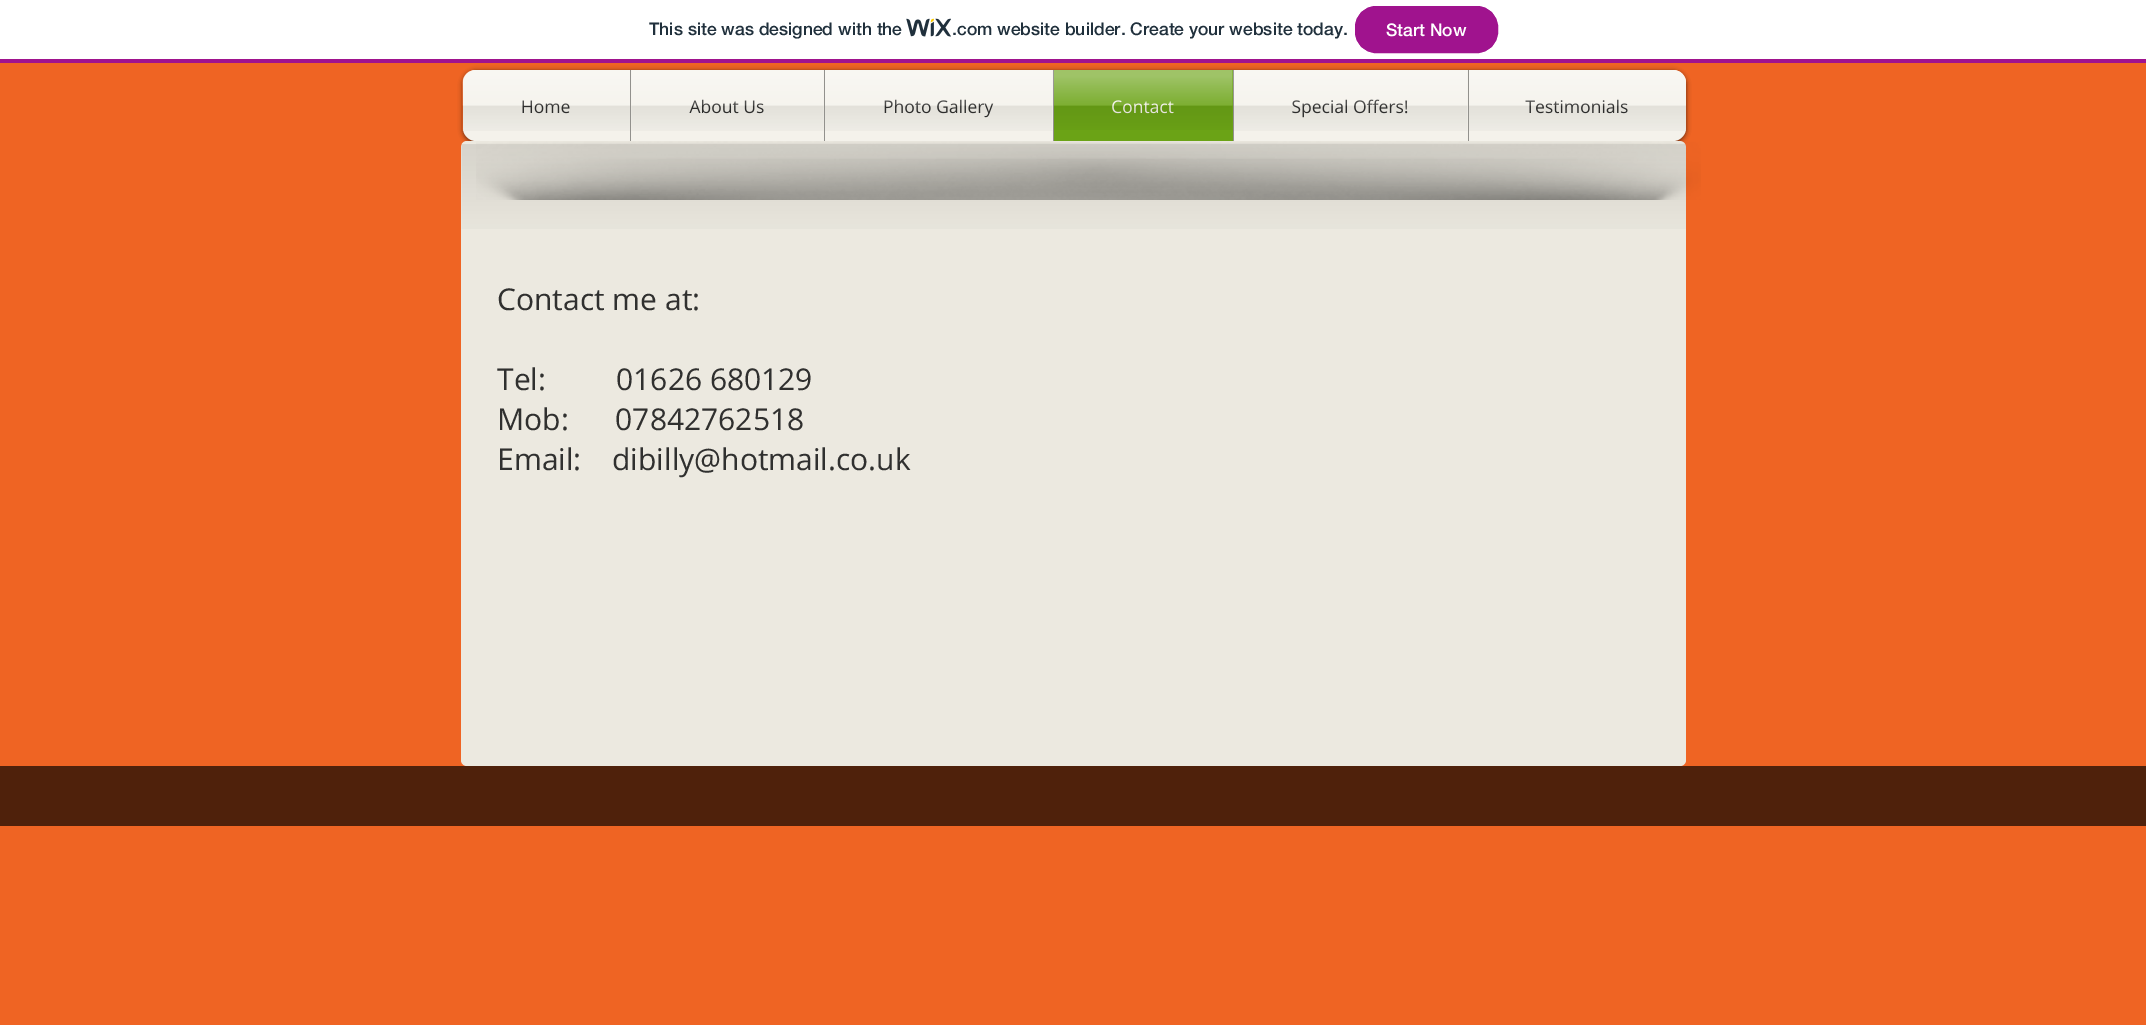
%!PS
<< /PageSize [2146 1025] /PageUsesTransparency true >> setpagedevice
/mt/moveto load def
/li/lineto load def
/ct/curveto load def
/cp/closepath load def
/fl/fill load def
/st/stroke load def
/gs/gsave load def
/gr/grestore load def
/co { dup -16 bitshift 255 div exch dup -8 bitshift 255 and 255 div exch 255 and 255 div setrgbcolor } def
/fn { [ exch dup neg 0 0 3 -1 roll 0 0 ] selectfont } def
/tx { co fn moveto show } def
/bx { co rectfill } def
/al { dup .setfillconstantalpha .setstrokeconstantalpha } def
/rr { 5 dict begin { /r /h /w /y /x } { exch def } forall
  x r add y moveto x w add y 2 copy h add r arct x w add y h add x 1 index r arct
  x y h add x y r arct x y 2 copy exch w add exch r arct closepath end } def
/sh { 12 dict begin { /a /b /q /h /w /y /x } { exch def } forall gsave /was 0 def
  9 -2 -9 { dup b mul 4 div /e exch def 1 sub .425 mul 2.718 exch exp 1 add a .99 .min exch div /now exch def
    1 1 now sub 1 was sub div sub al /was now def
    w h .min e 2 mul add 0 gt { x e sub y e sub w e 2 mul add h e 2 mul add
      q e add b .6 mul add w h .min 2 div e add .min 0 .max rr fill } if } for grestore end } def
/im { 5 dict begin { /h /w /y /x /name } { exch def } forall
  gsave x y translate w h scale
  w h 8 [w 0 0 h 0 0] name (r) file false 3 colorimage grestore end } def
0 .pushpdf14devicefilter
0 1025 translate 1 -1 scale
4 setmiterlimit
0 0 2146 1025 16#FFFFFF bx
0 63 2146 962 16#EF6423 bx
16#000000 co
463 71 1223 72 13 2.5 .6 sh
0 59 2146 4 16#A0138E bx
(media/1.raw) 906 18 45 19 im
1355.5 6.5 142 46 20.5 rr gs fl gr
st
(media/2.raw) 462 70 1224 61 im
16#F4F2EB co
476 70 mt 630 70 li 630 141 li 476 141 li 469 141 463 135 463 128 ct 463 83 li 463 76 469 70 476 70 ct cp fl
631 70 193 71 16#F4F2EB bx
630 70 1 71 16#92918D bx
825 70 228 71 16#F4F2EB bx
824 70 1 71 16#92918D bx
1054 70 179 71 16#6BA316 bx
1053 70 1 71 16#92918D bx
1234 70 234 71 16#F4F2EB bx
1233 70 1 71 16#92918D bx
16#F4F2EB co
1468 70 mt 1673 70 li 1680 70 1686 76 1686 83 ct 1686 128 li 1686 135 1680 141 1673 141 ct 1468 141 li cp fl
1468 70 1 71 16#92918D bx
16#ECE9E0 co
461 141 1225 625 6 rr fl
(media/9.raw) 461 144 1225 85 im
(media/10.raw) 476 141 1225 59 im
0 766 2146 60 16#4F210B bx
(This site was designed with the) 649 35 /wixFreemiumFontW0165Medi-Medium 17.5 16#20303C tx
(.com website builder. Create your website today.) 952 35 /wixFreemiumFontW0165Medi-Medium 17.5 16#20303C tx
(Start Now) 1386 36 /wixFreemiumFontW0165Medi-Medium 17.5 16#FFFFFF tx
(Home) 521 113 /OpenSans-Regular 17.5 16#30302F tx
(media/3.raw) 462 70 168 61 im
(About Us) 689 113 /OpenSans-Regular 17.5 16#30302F tx
(media/4.raw) 631 70 193 61 im
(Photo Gallery) 883 113 /OpenSans-Regular 17.5 16#30302F tx
(media/5.raw) 825 70 228 61 im
(Contact) 1111 113 /OpenSans-Regular 17.5 16#F4F2EB tx
(media/6.raw) 1053 70 180 60 im
(Special Offers!) 1291 113 /OpenSans-Regular 17.5 16#30302F tx
(media/7.raw) 1233 70 235 61 im
(Testimonials) 1525 113 /OpenSans-Regular 17.5 16#30302F tx
(media/8.raw) 1469 70 217 61 im
(Contact me at:) 497 310 /OpenSans-Regular 30 16#30302F tx
(Tel:         01626 680129) 497 390 /OpenSans-Regular 30 16#30302F tx
(Mob:      07842762518) 497 430 /OpenSans-Regular 30 16#30302F tx
(Email:) 497 470 /OpenSans-Regular 30 16#30302F tx
(dibilly@hotmail.co.uk) 612 470 /OpenSans-Regular 30 16#30302F tx
.poppdf14devicefilter showpage
